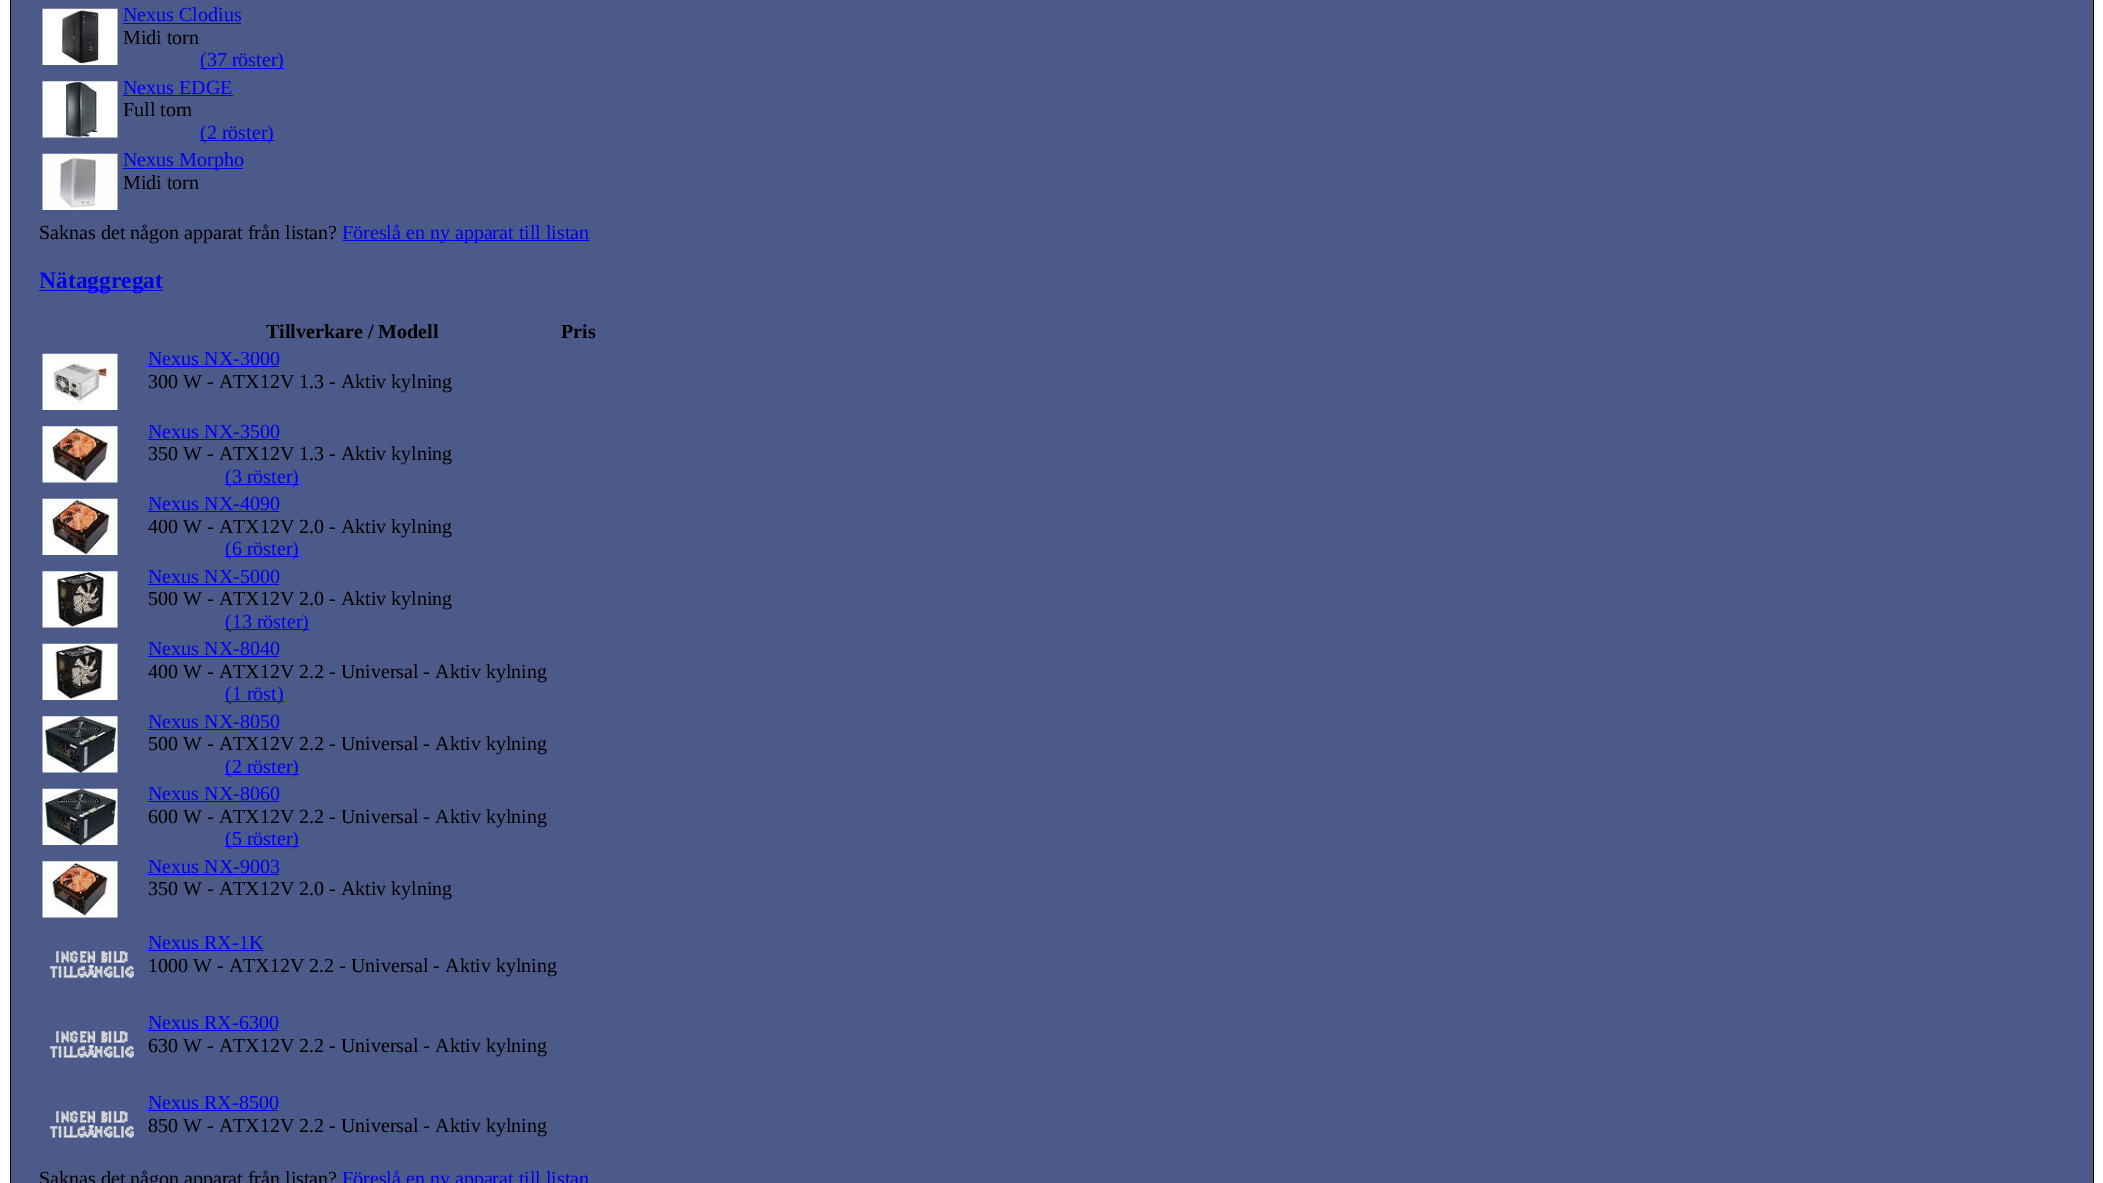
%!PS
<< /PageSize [2103 1183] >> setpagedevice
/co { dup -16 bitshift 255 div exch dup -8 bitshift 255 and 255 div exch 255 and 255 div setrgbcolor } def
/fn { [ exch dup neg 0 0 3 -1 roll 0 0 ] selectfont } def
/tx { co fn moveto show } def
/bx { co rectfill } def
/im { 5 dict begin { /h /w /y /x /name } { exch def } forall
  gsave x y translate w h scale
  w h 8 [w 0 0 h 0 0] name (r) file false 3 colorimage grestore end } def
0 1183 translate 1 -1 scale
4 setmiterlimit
0 0 2103 1183 16#FFFFFF bx
11 0 2082 1183 16#4C5A89 bx
2093 0 1 1183 16#000000 bx
10 0 1 1183 16#000000 bx
(media/1.raw) 42 8 76 57 im
123 23 118 1 16#0000EE bx
200 68 84 1 16#0000EE bx
(media/2.raw) 42 81 76 57 im
123 95 110 1 16#0000EE bx
200 140 74 1 16#0000EE bx
(media/3.raw) 42 153 76 57 im
123 168 120 1 16#0000EE bx
343 240 246 1 16#0000EE bx
39 290 124 1 16#0000EE bx
(media/4.raw) 42 353 76 57 im
148 366 131 1 16#0000EE bx
(media/5.raw) 42 426 76 57 im
148 439 131 1 16#0000EE bx
225 484 74 1 16#0000EE bx
(media/6.raw) 42 498 76 57 im
148 511 131 1 16#0000EE bx
225 556 74 1 16#0000EE bx
(media/7.raw) 42 571 76 57 im
148 584 131 1 16#0000EE bx
225 629 84 1 16#0000EE bx
(media/8.raw) 42 643 76 57 im
148 656 131 1 16#0000EE bx
225 701 59 1 16#0000EE bx
(media/9.raw) 42 716 76 57 im
148 729 131 1 16#0000EE bx
225 774 74 1 16#0000EE bx
(media/10.raw) 42 788 76 57 im
148 801 131 1 16#0000EE bx
225 846 74 1 16#0000EE bx
(media/11.raw) 42 861 76 57 im
148 874 131 1 16#0000EE bx
(media/12.raw) 49 951 85 27 im
148 950 115 1 16#0000EE bx
(media/13.raw) 49 1031 85 27 im
148 1030 130 1 16#0000EE bx
(media/13.raw) 49 1111 85 27 im
148 1110 130 1 16#0000EE bx
(Nexus Clodius) 123 21 /LiberationSerif-Regular 20 16#0000EE tx
(Midi torn) 123 44 /LiberationSerif-Regular 20 16#000000 tx
(\(37 röster\)) 200 66 /LiberationSerif-Regular 20 16#0000EE tx
(Nexus EDGE) 123 94 /LiberationSerif-Regular 20 16#0000EE tx
(Full torn) 123 116 /LiberationSerif-Regular 20 16#000000 tx
(\(2 röster\)) 200 139 /LiberationSerif-Regular 20 16#0000EE tx
(Nexus Morpho) 123 166 /LiberationSerif-Regular 20 16#0000EE tx
(Midi torn) 123 189 /LiberationSerif-Regular 20 16#000000 tx
(Saknas det någon apparat från listan?) 39 239 /LiberationSerif-Regular 20 16#000000 tx
(Föreslå en ny apparat till listan) 342 239 /LiberationSerif-Regular 20 16#0000EE tx
(Nätaggregat) 39 288 /LiberationSerif-Bold 23.5 16#0000EE tx
(Tillverkare / Modell) 266 338 /LiberationSerif-Bold 20 16#000000 tx
(Pris) 561 338 /LiberationSerif-Bold 20 16#000000 tx
(Nexus NX-3000) 148 365 /LiberationSerif-Regular 20 16#0000EE tx
(300 W - ATX12V 1.3 - Aktiv kylning) 148 388 /LiberationSerif-Regular 20 16#000000 tx
(Nexus NX-3500) 148 438 /LiberationSerif-Regular 20 16#0000EE tx
(350 W - ATX12V 1.3 - Aktiv kylning) 148 460 /LiberationSerif-Regular 20 16#000000 tx
(\(3 röster\)) 225 483 /LiberationSerif-Regular 20 16#0000EE tx
(Nexus NX-4090) 148 510 /LiberationSerif-Regular 20 16#0000EE tx
(400 W - ATX12V 2.0 - Aktiv kylning) 148 533 /LiberationSerif-Regular 20 16#000000 tx
(\(6 röster\)) 225 555 /LiberationSerif-Regular 20 16#0000EE tx
(Nexus NX-5000) 148 583 /LiberationSerif-Regular 20 16#0000EE tx
(500 W - ATX12V 2.0 - Aktiv kylning) 148 605 /LiberationSerif-Regular 20 16#000000 tx
(\(13 röster\)) 225 628 /LiberationSerif-Regular 20 16#0000EE tx
(Nexus NX-8040) 148 655 /LiberationSerif-Regular 20 16#0000EE tx
(400 W - ATX12V 2.2 - Universal - Aktiv kylning) 148 678 /LiberationSerif-Regular 20 16#000000 tx
(\(1 röst\)) 225 700 /LiberationSerif-Regular 20 16#0000EE tx
(Nexus NX-8050) 148 728 /LiberationSerif-Regular 20 16#0000EE tx
(500 W - ATX12V 2.2 - Universal - Aktiv kylning) 148 750 /LiberationSerif-Regular 20 16#000000 tx
(\(2 röster\)) 225 773 /LiberationSerif-Regular 20 16#0000EE tx
(Nexus NX-8060) 148 800 /LiberationSerif-Regular 20 16#0000EE tx
(600 W - ATX12V 2.2 - Universal - Aktiv kylning) 148 823 /LiberationSerif-Regular 20 16#000000 tx
(\(5 röster\)) 225 845 /LiberationSerif-Regular 20 16#0000EE tx
(Nexus NX-9003) 148 873 /LiberationSerif-Regular 20 16#0000EE tx
(350 W - ATX12V 2.0 - Aktiv kylning) 148 895 /LiberationSerif-Regular 20 16#000000 tx
(Nexus RX-1K) 148 949 /LiberationSerif-Regular 20 16#0000EE tx
(1000 W - ATX12V 2.2 - Universal - Aktiv kylning) 148 972 /LiberationSerif-Regular 20 16#000000 tx
(Nexus RX-6300) 148 1029 /LiberationSerif-Regular 20 16#0000EE tx
(630 W - ATX12V 2.2 - Universal - Aktiv kylning) 148 1052 /LiberationSerif-Regular 20 16#000000 tx
(Nexus RX-8500) 148 1109 /LiberationSerif-Regular 20 16#0000EE tx
(850 W - ATX12V 2.2 - Universal - Aktiv kylning) 148 1132 /LiberationSerif-Regular 20 16#000000 tx
(Saknas det någon apparat från listan?) 39 1185 /LiberationSerif-Regular 20 16#000000 tx
(Föreslå en ny apparat till listan) 342 1185 /LiberationSerif-Regular 20 16#0000EE tx
showpage
